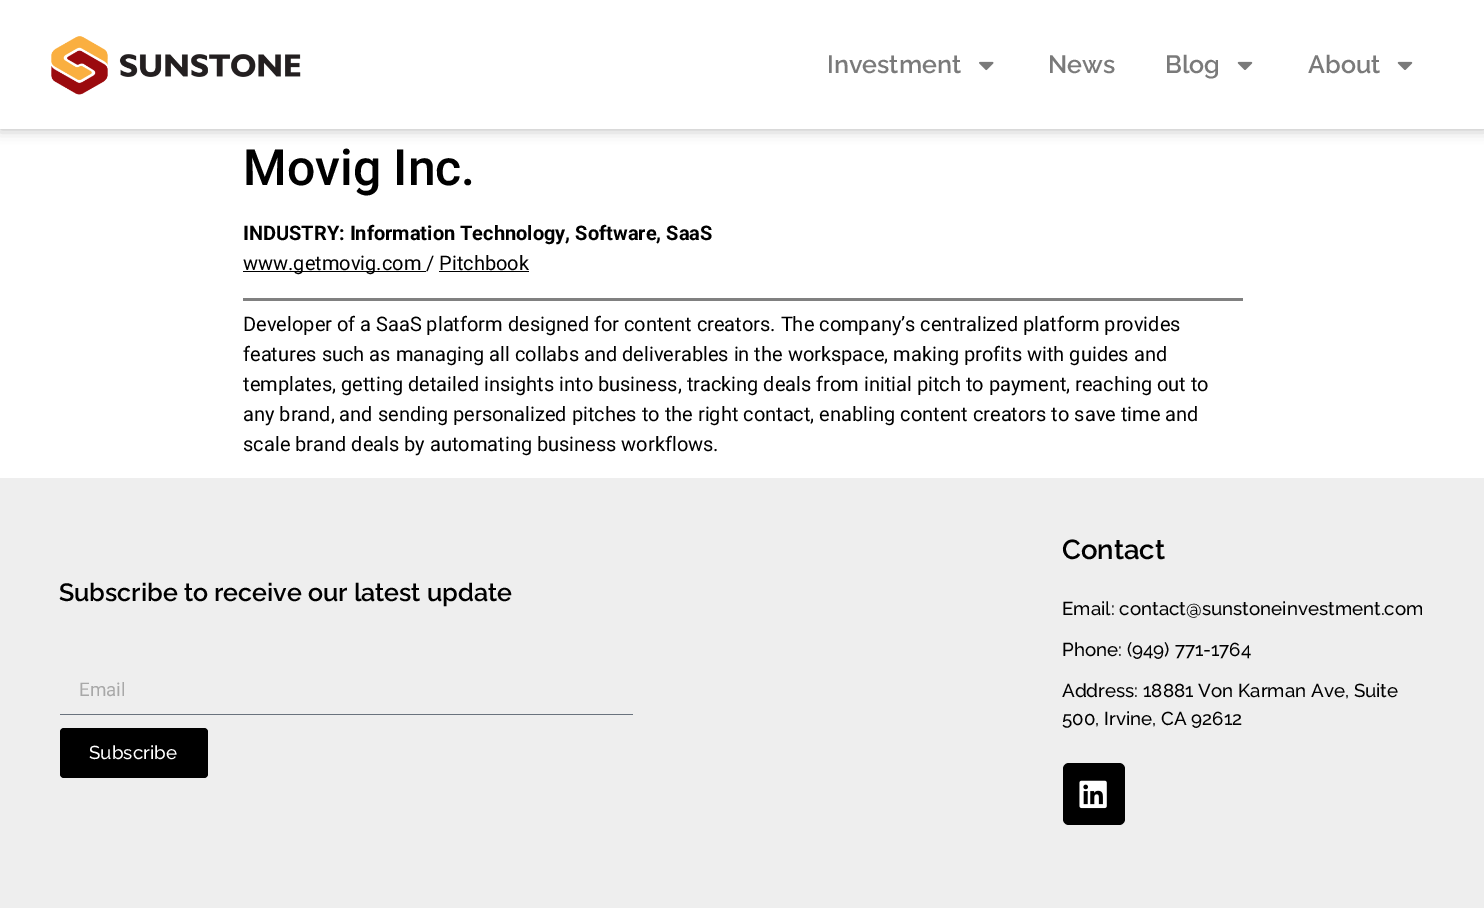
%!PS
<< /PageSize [1484 908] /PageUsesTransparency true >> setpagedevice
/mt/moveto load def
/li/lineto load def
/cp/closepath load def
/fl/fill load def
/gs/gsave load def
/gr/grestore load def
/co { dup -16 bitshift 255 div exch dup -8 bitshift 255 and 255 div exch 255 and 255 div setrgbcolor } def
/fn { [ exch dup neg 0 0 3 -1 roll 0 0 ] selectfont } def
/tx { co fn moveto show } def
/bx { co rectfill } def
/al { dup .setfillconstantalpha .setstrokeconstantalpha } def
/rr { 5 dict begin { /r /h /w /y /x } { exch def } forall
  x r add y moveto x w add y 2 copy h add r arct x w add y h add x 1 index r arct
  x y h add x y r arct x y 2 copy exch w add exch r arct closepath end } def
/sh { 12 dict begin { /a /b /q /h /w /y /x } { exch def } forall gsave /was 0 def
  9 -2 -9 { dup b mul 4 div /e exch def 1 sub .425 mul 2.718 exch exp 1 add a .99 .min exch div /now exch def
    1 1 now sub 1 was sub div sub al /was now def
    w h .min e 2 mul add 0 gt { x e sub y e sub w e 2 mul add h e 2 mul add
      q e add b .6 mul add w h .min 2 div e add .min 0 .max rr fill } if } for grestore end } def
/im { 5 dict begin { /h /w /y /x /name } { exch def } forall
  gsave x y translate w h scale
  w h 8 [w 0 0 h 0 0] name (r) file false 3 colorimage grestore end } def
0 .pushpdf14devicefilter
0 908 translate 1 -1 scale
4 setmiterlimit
0 0 1484 908 16#FFFFFF bx
gs
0 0 mt 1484 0 li 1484 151 li 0 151 li cp 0 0 mt 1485 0 li 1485 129 li 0 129 li cp eoclip newpath
16#000000 co
0 0 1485 129 0 7 .3 sh
gr
(media/1.raw) 51 36 250 59 im
(media/2.raw) 979 61 15 10 im
(media/3.raw) 1237 61 16 9 im
(media/3.raw) 1397 61 16 9 im
0.44 al
1 128 1483 1 16#FFFFFF bx
1 al
243 271 183 1 16#000000 bx
439 271 90 1 16#000000 bx
243 298 1000 3 16#808080 bx
0 478 1484 430 16#EEEEEE bx
60 714 573 1 16#69727D bx
16#000000 co
60 728 148 50 4 rr fl
1063 763 62 62 6 rr fl
(media/4.raw) 1079 780 28 29 im
(Investment) 827 73 /Raleway-SemiBold 25 16#7A7A7A tx
(News) 1048 73 /Raleway-SemiBold 25 16#7A7A7A tx
(Blog) 1165 73 /Raleway-SemiBold 25 16#7A7A7A tx
(About) 1308 73 /Raleway-SemiBold 25 16#7A7A7A tx
(Movig Inc.) 243 185 /Roboto-Medium 50 16#000000 tx
(INDUSTRY: Information Technology, Software, SaaS) 243 240 /Roboto-Bold 20 16#000000 tx
(www.getmovig.com / Pitchbook) 243 270 /Roboto-Regular 20 16#000000 tx
(Developer of a SaaS platform designed for content creators. The company’s centralized platform provides) 243 331 /Roboto-Regular 20 16#000000 tx
(features such as managing all collabs and deliverables in the workspace, making profits with guides and) 243 361 /Roboto-Regular 20 16#000000 tx
(templates, getting detailed insights into business, tracking deals from initial pitch to payment, reaching out to) 243 391 /Roboto-Regular 20 16#000000 tx
(any brand, and sending personalized pitches to the right contact, enabling content creators to save time and) 243 421 /Roboto-Regular 20 16#000000 tx
(scale brand deals by automating business workflows.) 243 451 /Roboto-Regular 20 16#000000 tx
(Subscribe to receive our latest update) 59 601 /Raleway-SemiBold 25 16#000000 tx
(Email) 79 696 /Roboto-Regular 18.75 16#A8A8A8 tx
(Subscribe) 89 759 /Raleway-Medium 18.75 16#FFFFFF tx
(Contact) 1062 559 /Raleway-SemiBold 27.5 16#000000 tx
(Email: contact@sunstoneinvestment.com) 1062 615 /Raleway-Medium 18.75 16#000000 tx
(Phone: \(949\) 771-1764) 1062 656 /Raleway-Medium 18.75 16#000000 tx
(Address: 18881 Von Karman Ave, Suite) 1062 697 /Raleway-Medium 18.75 16#000000 tx
(500, Irvine, CA 92612) 1062 725 /Raleway-Medium 18.75 16#000000 tx
.poppdf14devicefilter showpage
